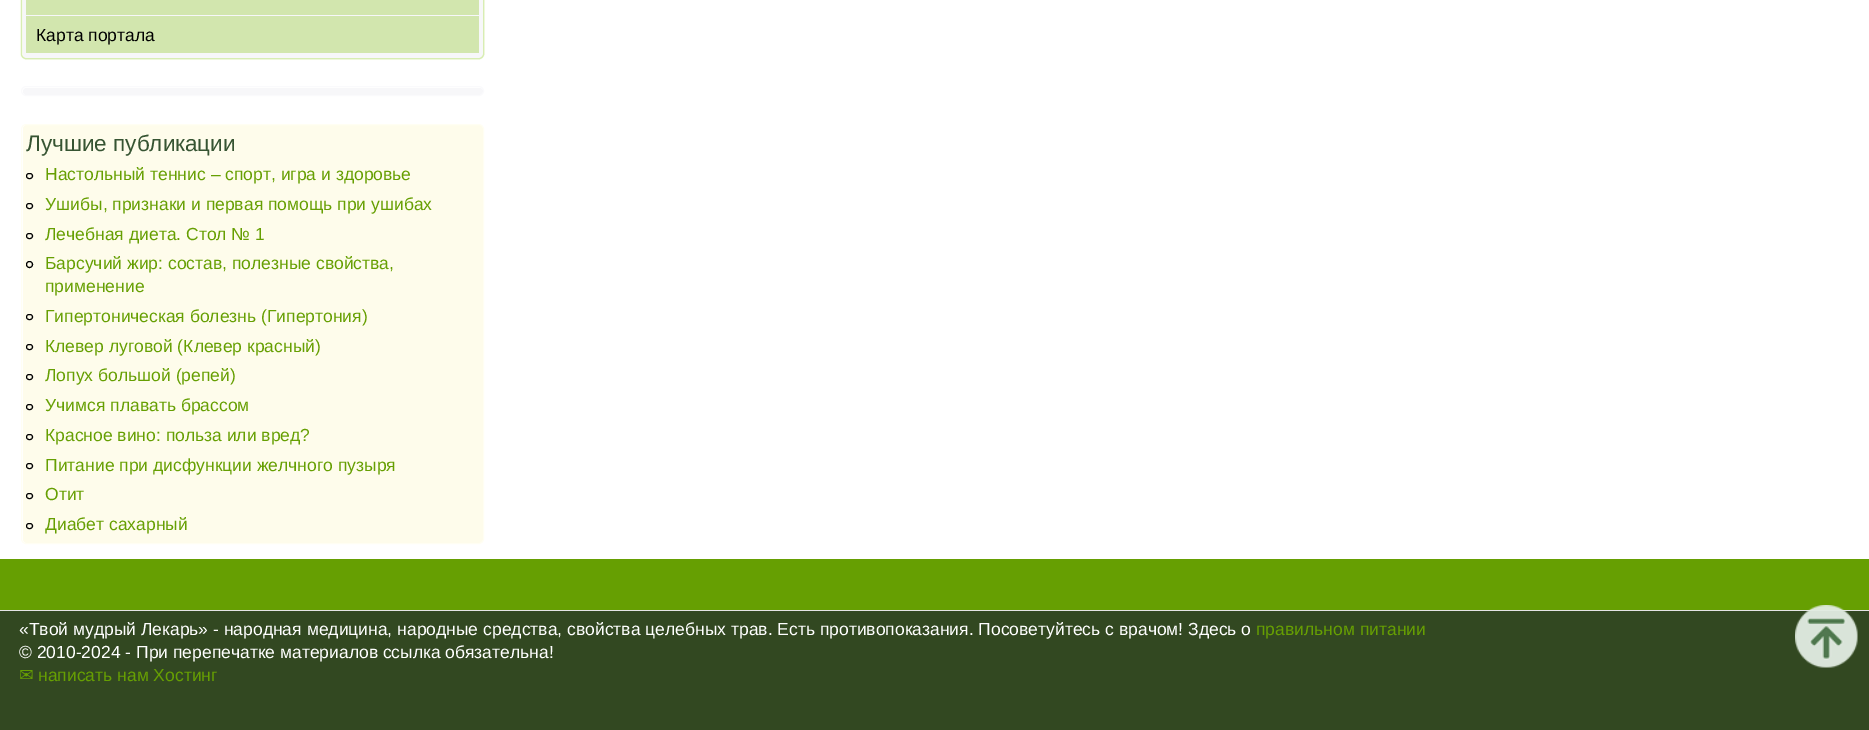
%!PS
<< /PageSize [1869 730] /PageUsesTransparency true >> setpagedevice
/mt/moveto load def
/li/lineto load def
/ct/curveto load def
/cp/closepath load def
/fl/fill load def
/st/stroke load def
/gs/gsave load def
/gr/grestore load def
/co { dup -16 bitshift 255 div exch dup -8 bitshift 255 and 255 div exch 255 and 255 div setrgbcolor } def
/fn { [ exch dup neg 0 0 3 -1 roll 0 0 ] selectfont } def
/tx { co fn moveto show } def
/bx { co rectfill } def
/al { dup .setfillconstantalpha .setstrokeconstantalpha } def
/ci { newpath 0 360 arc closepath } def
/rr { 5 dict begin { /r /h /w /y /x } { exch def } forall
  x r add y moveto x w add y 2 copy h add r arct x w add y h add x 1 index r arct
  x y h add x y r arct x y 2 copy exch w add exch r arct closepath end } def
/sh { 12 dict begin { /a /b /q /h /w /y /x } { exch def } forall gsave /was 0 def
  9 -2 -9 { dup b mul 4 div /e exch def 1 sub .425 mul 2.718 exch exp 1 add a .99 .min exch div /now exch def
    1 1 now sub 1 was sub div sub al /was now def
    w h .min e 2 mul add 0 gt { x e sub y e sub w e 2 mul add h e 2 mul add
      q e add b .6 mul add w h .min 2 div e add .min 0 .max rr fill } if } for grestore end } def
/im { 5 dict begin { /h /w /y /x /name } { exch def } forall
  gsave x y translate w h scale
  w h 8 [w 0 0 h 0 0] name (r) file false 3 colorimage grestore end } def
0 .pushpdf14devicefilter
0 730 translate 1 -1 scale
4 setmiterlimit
0 0 1869 730 16#FFFFFF bx
gs
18 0 mt 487 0 li 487 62 li 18 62 li cp 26 -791 mt 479 -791 li 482 -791 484 -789 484 -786 ct 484 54 li 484 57 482 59 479 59 ct 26 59 li 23 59 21 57 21 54 ct 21 -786 li 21 -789 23 -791 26 -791 ct cp eoclip newpath
16#D8EDB3 co
21 -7 463 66 5 .5 1 sh
gr
16#F7F7F9 co
23 -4 460 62 4 rr fl
16#D8EDB3 co
21.5 -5.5 462 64 4.5 rr st
26 0 453 15 16#D2E6AE bx
26 16 453 37 16#D2E6AE bx
16#F7F7F9 co
23 88 460 7 3.5 rr fl
16#FAFAFC co
21.5 86.5 462 9 4.5 rr st
16#FEFCEB co
23 125 460 418 4 rr fl
16#FFFEF3 co
21.5 124.5 462 419 4.5 rr st
16#000000 co
26.5 173.5 6 5 2.5 rr st
26.5 203.5 6 5 2.5 rr st
26.5 233.5 6 5 2.5 rr st
29.5 264.5 3 ci st
26.5 314.5 6 5 2.5 rr st
26.5 344.5 6 5 2.5 rr st
26.5 374.5 6 5 2.5 rr st
26.5 404.5 6 5 2.5 rr st
26.5 434.5 6 5 2.5 rr st
26.5 463.5 6 5 2.5 rr st
26.5 493.5 6 5 2.5 rr st
26.5 523.5 6 5 2.5 rr st
0 559 1869 51 16#669F02 bx
0 610 1869 1 16#E5E5E5 bx
0 611 1869 119 16#324821 bx
(media/1.raw) 1795 605 63 63 im
(Карта портала) 36 41 /LiberationSans-Regular 17.5 16#000000 tx
(Лучшие публикации) 26 151 /LiberationSans-Regular 22.5 16#365432 tx
(Настольный теннис – спорт, игра и здоровье) 45 180 /LiberationSans-Regular 17.5 16#669F02 tx
(Ушибы, признаки и первая помощь при ушибах) 45 210 /LiberationSans-Regular 17.5 16#669F02 tx
(Лечебная диета. Стол № 1) 45 240 /LiberationSans-Regular 17.5 16#669F02 tx
(Барсучий жир: состав, полезные свойства,) 45 269 /LiberationSans-Regular 17.5 16#669F02 tx
(применение) 45 292 /LiberationSans-Regular 17.5 16#669F02 tx
(Гипертоническая болезнь \(Гипертония\)) 45 322 /LiberationSans-Regular 17.5 16#669F02 tx
(Клевер луговой \(Клевер красный\)) 45 352 /LiberationSans-Regular 17.5 16#669F02 tx
(Лопух большой \(репей\)) 45 381 /LiberationSans-Regular 17.5 16#669F02 tx
(Учимся плавать брассом) 45 411 /LiberationSans-Regular 17.5 16#669F02 tx
(Красное вино: польза или вред?) 45 441 /LiberationSans-Regular 17.5 16#669F02 tx
(Питание при дисфункции желчного пузыря) 45 471 /LiberationSans-Regular 17.5 16#669F02 tx
(Отит) 45 500 /LiberationSans-Regular 17.5 16#669F02 tx
(Диабет сахарный) 45 530 /LiberationSans-Regular 17.5 16#669F02 tx
(«Твой мудрый Лекарь» - народная медицина, народные средства, свойства целебных трав. Есть противопоказания. Посоветуйтесь с врачом! Здесь о) 19 635 /LiberationSans-Regular 17.5 16#FFFFFF tx
(правильном питании) 1256 635 /LiberationSans-Regular 17.5 16#669F02 tx
(© 2010-2024 - При перепечатке материалов ссылка обязательна!) 19 658 /LiberationSans-Regular 17.5 16#FFFFFF tx
(✉) 19 681 /DejaVuSans-Regular 17.5 16#669F02 tx
(написать нам Хостинг) 38 681 /LiberationSans-Regular 17.5 16#669F02 tx
.poppdf14devicefilter showpage
